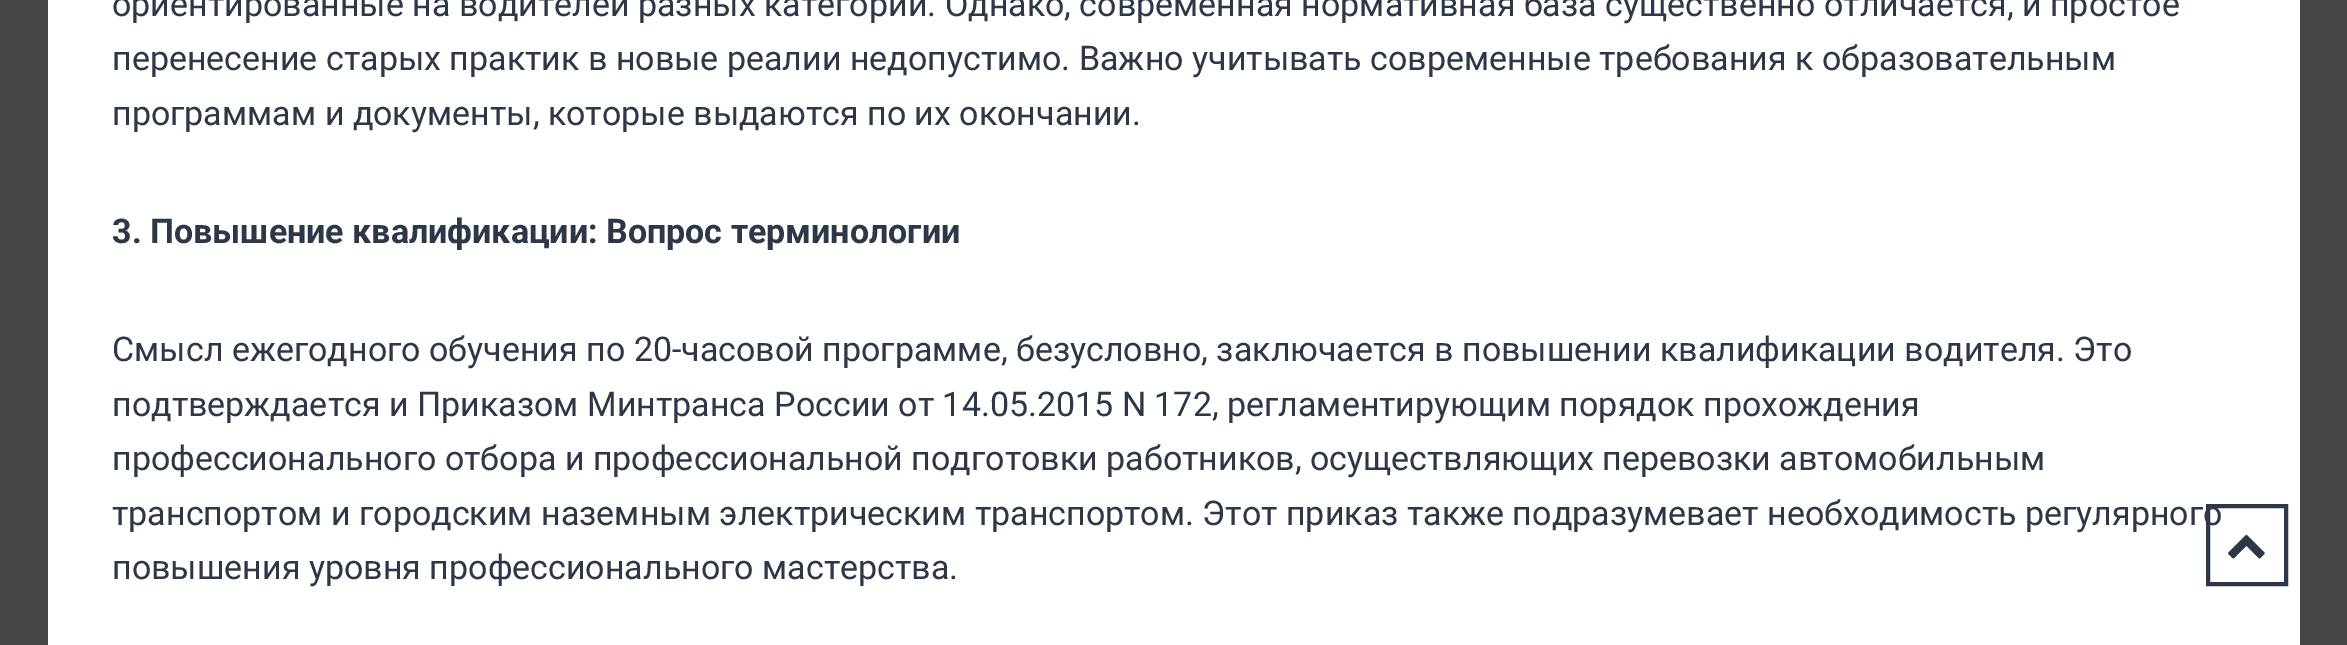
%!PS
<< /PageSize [2347 645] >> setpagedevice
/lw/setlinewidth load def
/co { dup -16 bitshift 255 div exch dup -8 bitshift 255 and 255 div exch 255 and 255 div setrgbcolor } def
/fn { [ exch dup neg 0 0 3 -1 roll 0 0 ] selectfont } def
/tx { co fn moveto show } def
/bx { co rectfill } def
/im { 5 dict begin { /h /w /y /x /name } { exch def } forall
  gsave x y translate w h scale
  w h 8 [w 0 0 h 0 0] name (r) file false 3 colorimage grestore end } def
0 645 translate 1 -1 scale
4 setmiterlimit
0 0 2347 645 16#454545 bx
48 0 2252 645 16#FFFFFF bx
16#2D3748 co
4 lw
2208 506 78 78 rectstroke
(media/1.raw) 2228 534 37 25 im
(ориентированные на водителей разных категорий. Однако, современная нормативная база существенно отличается, и простое) 112 16 /Roboto-Regular 34 16#2D3748 tx
(перенесение старых практик в новые реалии недопустимо. Важно учитывать современные требования к образовательным) 112 70 /Roboto-Regular 34 16#2D3748 tx
(программам и документы, которые выдаются по их окончании.) 112 125 /Roboto-Regular 34 16#2D3748 tx
(3. Повышение квалификации: Вопрос терминологии) 112 243 /Roboto-Bold 34 16#2D3748 tx
(Смысл ежегодного обучения по 20-часовой программе, безусловно, заключается в повышении квалификации водителя. Это) 112 361 /Roboto-Regular 34 16#2D3748 tx
(подтверждается и Приказом Минтранса России от 14.05.2015 N 172, регламентирующим порядок прохождения) 112 416 /Roboto-Regular 34 16#2D3748 tx
(профессионального отбора и профессиональной подготовки работников, осуществляющих перевозки автомобильным) 112 470 /Roboto-Regular 34 16#2D3748 tx
(транспортом и городским наземным электрическим транспортом. Этот приказ также подразумевает необходимость регулярного) 112 525 /Roboto-Regular 34 16#2D3748 tx
(повышения уровня профессионального мастерства.) 112 579 /Roboto-Regular 34 16#2D3748 tx
showpage
